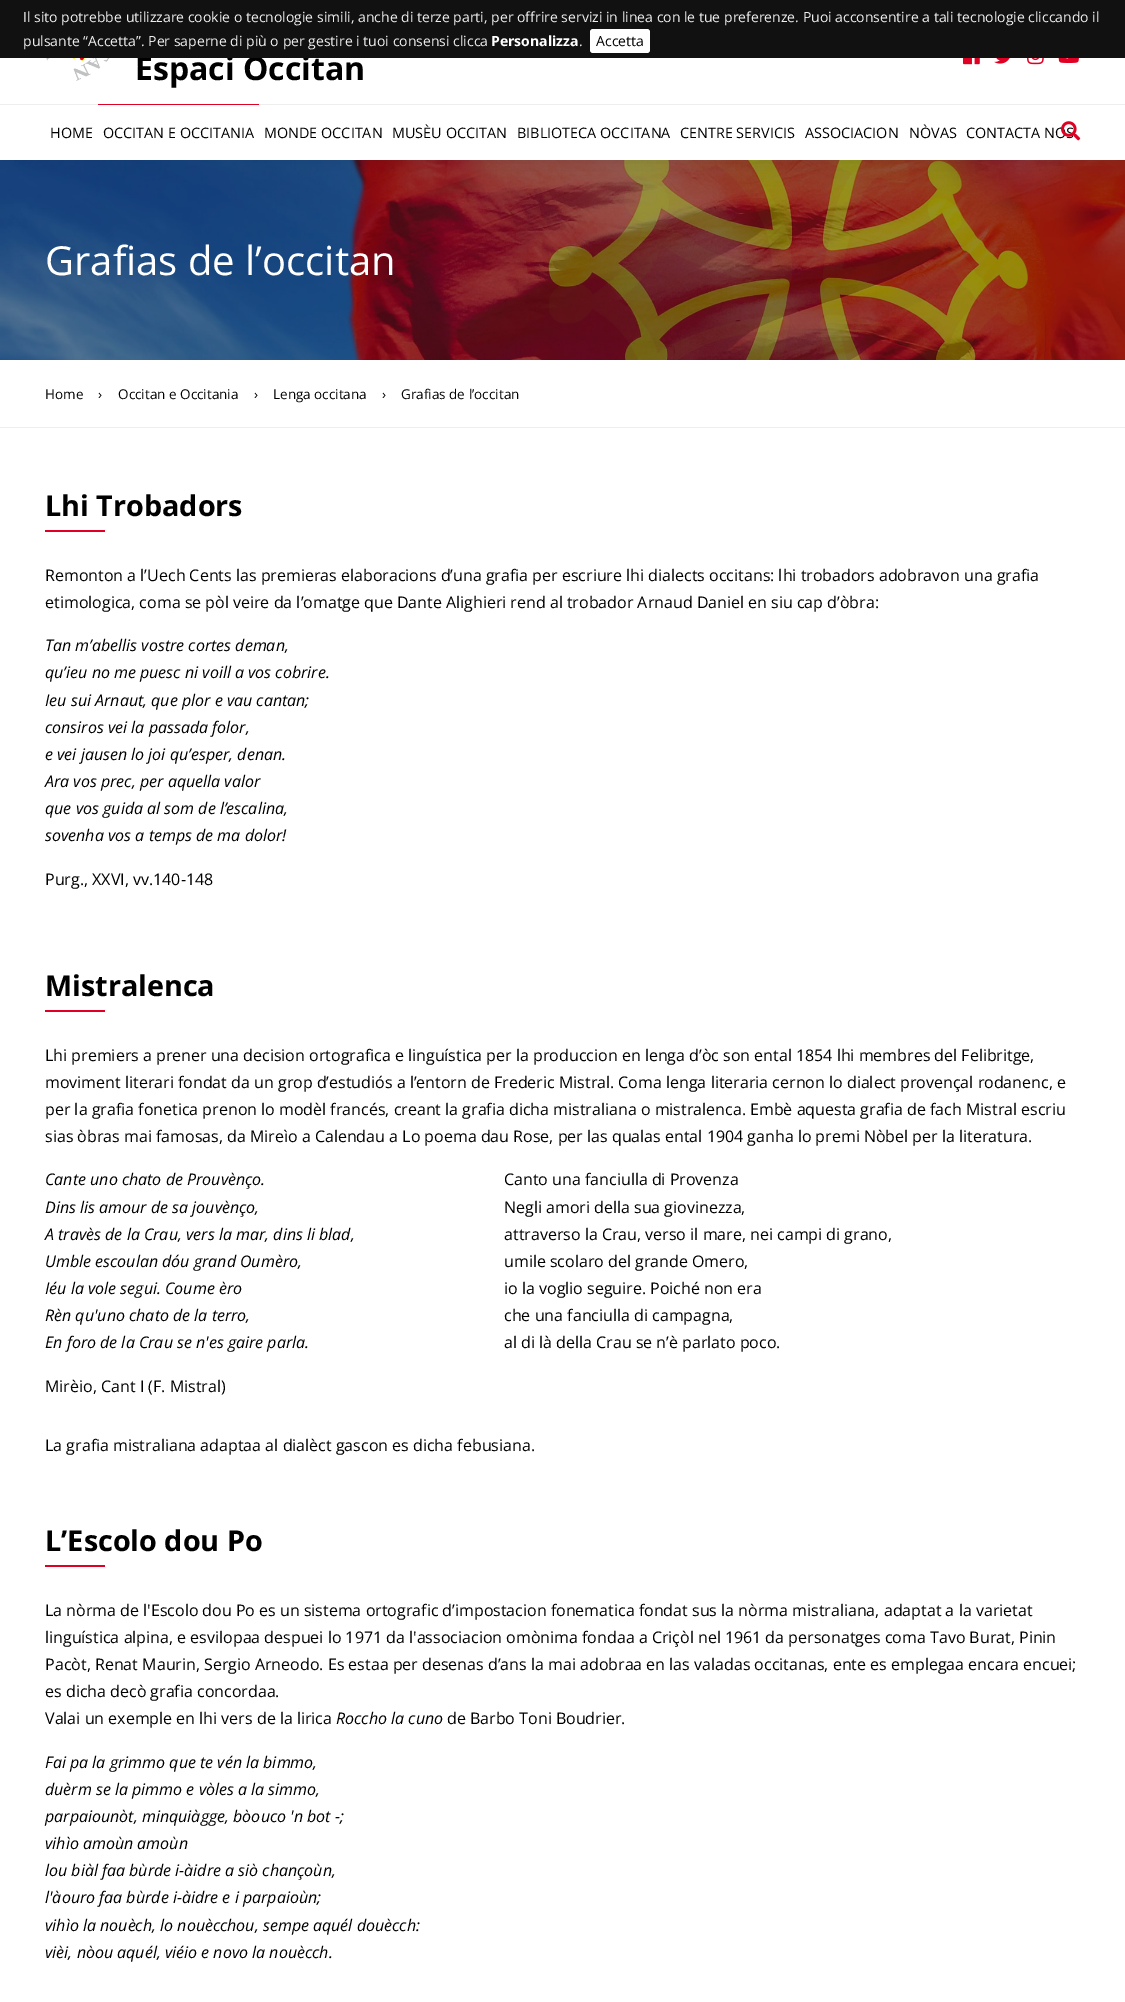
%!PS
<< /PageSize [1125 2002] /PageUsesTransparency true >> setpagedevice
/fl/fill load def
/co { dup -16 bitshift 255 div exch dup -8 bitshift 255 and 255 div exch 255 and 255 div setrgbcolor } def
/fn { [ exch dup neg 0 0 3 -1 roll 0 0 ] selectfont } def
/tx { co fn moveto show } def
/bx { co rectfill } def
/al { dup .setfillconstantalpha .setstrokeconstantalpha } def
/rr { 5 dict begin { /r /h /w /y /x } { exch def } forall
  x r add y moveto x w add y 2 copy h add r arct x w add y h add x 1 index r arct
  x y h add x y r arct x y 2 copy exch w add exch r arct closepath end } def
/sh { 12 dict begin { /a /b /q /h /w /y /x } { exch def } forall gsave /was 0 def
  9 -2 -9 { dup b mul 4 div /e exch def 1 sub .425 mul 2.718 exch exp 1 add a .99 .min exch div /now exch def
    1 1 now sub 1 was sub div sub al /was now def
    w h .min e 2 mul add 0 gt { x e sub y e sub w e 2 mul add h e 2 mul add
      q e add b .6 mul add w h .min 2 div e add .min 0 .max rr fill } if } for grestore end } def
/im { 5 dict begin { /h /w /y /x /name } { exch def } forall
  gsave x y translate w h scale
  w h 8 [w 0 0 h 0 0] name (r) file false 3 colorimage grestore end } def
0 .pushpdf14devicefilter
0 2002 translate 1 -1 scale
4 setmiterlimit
0 0 1125 2002 16#FFFFFF bx
(media/7.raw) 0 160 1125 200 im
16#073354 co
0 0 1125 160 0 15 .17 sh
0 58 1125 102 16#FFFFFF bx
(media/1.raw) 46 58 64 23 im
(media/2.raw) 963 58 17 7 im
(media/3.raw) 994 58 16 6 im
(media/4.raw) 1027 58 17 7 im
(media/5.raw) 1058 58 21 5 im
0 104 1125 1 16#EEEEEE bx
98 104 161 1 16#DF0024 bx
0 427 1125 1 16#EEEEEE bx
45 530 60 2 16#DF0024 bx
45 1010 60 2 16#DF0024 bx
45 1565 60 2 16#DF0024 bx
(Espaci Occitan) 135 80 /OpenSans-Bold 32 16#000000 tx
0 0 1125 58 16#111111 bx
16#FFFFFF co
590 29 60 24 3 rr fl
(Accetta) 596 46 /OpenSans-Regular 14 16#000000 tx
(.) 579 46 /OpenSans-Regular 14 16#EEEEEE tx
(Personalizza) 491 46 /OpenSans-Bold 14 16#FFFFFF tx
(pulsante “Accetta”. Per saperne di più o per gestire i tuoi consensi clicca) 23 46 /OpenSans-Regular 14 16#EEEEEE tx
(Il sito potrebbe utilizzare cookie o tecnologie simili, anche di terze parti, per offrire servizi in linea con le tue preferenze. Puoi acconsentire a tali tecnologie cliccando il) 23 22 /OpenSans-Regular 14 16#EEEEEE tx
(HOME) 50 138 /OpenSans-Regular 14.4 16#000000 tx
(OCCITAN E OCCITANIA) 103 138 /OpenSans-Regular 14.4 16#000000 tx
(MONDE OCCITAN) 264 138 /OpenSans-Regular 14.4 16#000000 tx
(MUSÈU OCCITAN) 392 138 /OpenSans-Regular 14.4 16#000000 tx
(BIBLIOTECA OCCITANA) 517 138 /OpenSans-Regular 14.4 16#000000 tx
(CENTRE SERVICIS) 680 138 /OpenSans-Regular 14.4 16#000000 tx
(ASSOCIACION) 805 138 /OpenSans-Regular 14.4 16#000000 tx
(NÒVAS) 909 138 /OpenSans-Regular 14.4 16#000000 tx
(CONTACTA NOS) 966 138 /OpenSans-Regular 14.4 16#000000 tx
(media/6.raw) 1061 121 20 20 im
(Grafias de l’occitan) 45 275 /OpenSans-Regular 40 16#FFFFFF tx
(Home) 45 399 /OpenSans-Regular 13.5 16#000000 tx
(›) 98 399 /OpenSans-Regular 13.5 16#000000 tx
(Occitan e Occitania) 118 399 /OpenSans-Regular 13.5 16#000000 tx
(›) 254 399 /OpenSans-Regular 13.5 16#000000 tx
(Lenga occitana) 273 399 /OpenSans-Regular 13.5 16#000000 tx
(›) 382 399 /OpenSans-Regular 13.5 16#000000 tx
(Grafias de l’occitan) 401 399 /OpenSans-Regular 13.5 16#000000 tx
(Lhi Trobadors) 45 516 /OpenSans-Bold 28.75 16#000000 tx
(Remonton a l’Uech Cents las premieras elaboracions d’una grafia per escriure lhi dialects occitans: lhi trobadors adobravon una grafia) 45 581 /OpenSans-Regular 16 16#000000 tx
(etimologica, coma se pòl veire da l’omatge que Dante Alighieri rend al trobador Arnaud Daniel en siu cap d’òbra:) 45 608 /OpenSans-Regular 16 16#000000 tx
(Tan m’abellis vostre cortes deman,) 45 651 /OpenSans-Italic 16 16#000000 tx
(qu’ieu no me puesc ni voill a vos cobrire.) 45 678 /OpenSans-Italic 16 16#000000 tx
(Ieu sui Arnaut, que plor e vau cantan;) 45 706 /OpenSans-Italic 16 16#000000 tx
(consiros vei la passada folor,) 45 733 /OpenSans-Italic 16 16#000000 tx
(e vei jausen lo joi qu’esper, denan.) 45 760 /OpenSans-Italic 16 16#000000 tx
(Ara vos prec, per aquella valor) 45 787 /OpenSans-Italic 16 16#000000 tx
(que vos guida al som de l’escalina,) 45 814 /OpenSans-Italic 16 16#000000 tx
(sovenha vos a temps de ma dolor!) 45 841 /OpenSans-Italic 16 16#000000 tx
(Purg., XXVI, vv.140-148) 45 885 /OpenSans-Regular 16 16#000000 tx
(Mistralenca) 45 996 /OpenSans-Bold 28.75 16#000000 tx
(Lhi premiers a prener una decision ortografica e linguística per la produccion en lenga d’òc son ental 1854 lhi membres del Felibritge,) 45 1061 /OpenSans-Regular 16 16#000000 tx
(moviment literari fondat da un grop d’estudiós a l’entorn de Frederic Mistral. Coma lenga literaria cernon lo dialect provençal rodanenc, e) 45 1088 /OpenSans-Regular 16 16#000000 tx
(per la grafia fonetica prenon lo modèl francés, creant la grafia dicha mistraliana o mistralenca. Embè aquesta grafia de fach Mistral escriu) 45 1115 /OpenSans-Regular 16 16#000000 tx
(sias òbras mai famosas, da Mireìo a Calendau a Lo poema dau Rose, per las qualas ental 1904 ganha lo premi Nòbel per la literatura.) 45 1142 /OpenSans-Regular 16 16#000000 tx
(Cante uno chato de Prouvènço.) 45 1185 /OpenSans-Italic 16 16#000000 tx
(Dins lis amour de sa jouvènço,) 45 1213 /OpenSans-Italic 16 16#000000 tx
(A travès de la Crau, vers la mar, dins li blad,) 45 1240 /OpenSans-Italic 16 16#000000 tx
(Umble escoulan dóu grand Oumèro,) 45 1267 /OpenSans-Italic 16 16#000000 tx
(Iéu la vole segui. Coume èro) 45 1294 /OpenSans-Italic 16 16#000000 tx
(Rèn qu'uno chato de la terro,) 45 1321 /OpenSans-Italic 16 16#000000 tx
(En foro de la Crau se n'es gaire parla.) 45 1348 /OpenSans-Italic 16 16#000000 tx
(Canto una fanciulla di Provenza) 504 1185 /OpenSans-Regular 16 16#000000 tx
(Negli amori della sua giovinezza,) 504 1213 /OpenSans-Regular 16 16#000000 tx
(attraverso la Crau, verso il mare, nei campi di grano,) 504 1240 /OpenSans-Regular 16 16#000000 tx
(umile scolaro del grande Omero,) 504 1267 /OpenSans-Regular 16 16#000000 tx
(io la voglio seguire. Poiché non era) 504 1294 /OpenSans-Regular 16 16#000000 tx
(che una fanciulla di campagna,) 504 1321 /OpenSans-Regular 16 16#000000 tx
(al di là della Crau se n’è parlato poco.) 504 1348 /OpenSans-Regular 16 16#000000 tx
(Mirèio, Cant I \(F. Mistral\)) 45 1392 /OpenSans-Regular 16 16#000000 tx
(La grafia mistraliana adaptaa al dialèct gascon es dicha febusiana.) 45 1451 /OpenSans-Regular 16 16#000000 tx
(L’Escolo dou Po) 45 1551 /OpenSans-Bold 28.75 16#000000 tx
(La nòrma de l'Escolo dou Po es un sistema ortografic d’impostacion fonematica fondat sus la nòrma mistraliana, adaptat a la varietat) 45 1616 /OpenSans-Regular 16 16#000000 tx
(linguística alpina, e esvilopaa despuei lo 1971 da l'associacion omònima fondaa a Criçòl nel 1961 da personatges coma Tavo Burat, Pinin) 45 1643 /OpenSans-Regular 16 16#000000 tx
(Pacòt, Renat Maurin, Sergio Arneodo. Es estaa per desenas d’ans la mai adobraa en las valadas occitanas, ente es emplegaa encara encuei;) 45 1670 /OpenSans-Regular 16 16#000000 tx
(es dicha decò grafia concordaa.) 45 1697 /OpenSans-Regular 16 16#000000 tx
(Valai un exemple en lhi vers de la lirica) 45 1724 /OpenSans-Regular 16 16#000000 tx
(Roccho la cuno) 336 1724 /OpenSans-Italic 16 16#000000 tx
(de Barbo Toni Boudrier.) 447 1724 /OpenSans-Regular 16 16#000000 tx
(Fai pa la grimmo que te vén la bimmo,) 45 1768 /OpenSans-Italic 16 16#000000 tx
(duèrm se la pimmo e vòles a la simmo,) 45 1795 /OpenSans-Italic 16 16#000000 tx
(parpaiounòt, minquiàgge, bòouco 'n bot -;) 45 1822 /OpenSans-Italic 16 16#000000 tx
(vihìo amoùn amoùn) 45 1849 /OpenSans-Italic 16 16#000000 tx
(lou biàl faa bùrde i-àidre a siò chançoùn,) 45 1876 /OpenSans-Italic 16 16#000000 tx
(l'àouro faa bùrde i-àidre e i parpaioùn;) 45 1903 /OpenSans-Italic 16 16#000000 tx
(vihìo la nouèch, lo nouècchou, sempe aquél douècch:) 45 1931 /OpenSans-Italic 16 16#000000 tx
(vièi, nòou aquél, viéio e novo la nouècch.) 45 1958 /OpenSans-Italic 16 16#000000 tx
.poppdf14devicefilter showpage
